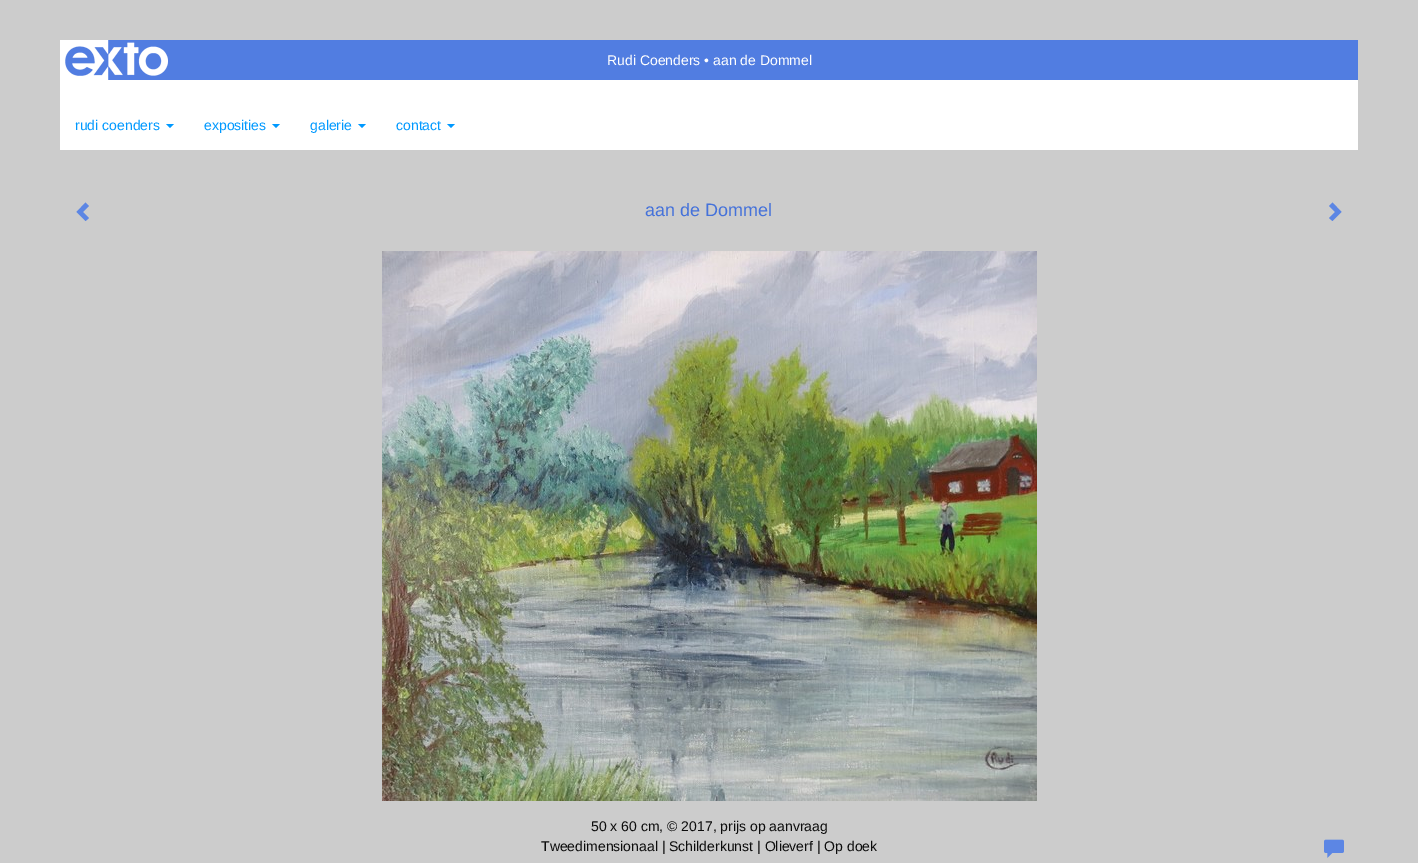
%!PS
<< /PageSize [1418 863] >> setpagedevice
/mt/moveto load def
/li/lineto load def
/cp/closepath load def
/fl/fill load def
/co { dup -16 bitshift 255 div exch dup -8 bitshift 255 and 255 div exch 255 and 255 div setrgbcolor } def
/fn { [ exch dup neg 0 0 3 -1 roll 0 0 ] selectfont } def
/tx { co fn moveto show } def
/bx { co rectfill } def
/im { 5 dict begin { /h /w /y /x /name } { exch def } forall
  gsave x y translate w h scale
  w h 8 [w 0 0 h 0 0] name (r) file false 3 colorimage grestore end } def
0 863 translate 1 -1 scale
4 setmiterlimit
0 0 1418 863 16#CCCCCC bx
65 40 1293 40 16#517DE1 bx
(media/1.raw) 60 40 108 40 im
60 80 1298 70 16#FFFFFF bx
16#0099FF co
166 124 mt 174 124 li 170 128 li cp fl
272 124 mt 280 124 li 276 128 li cp fl
358 124 mt 366 124 li 362 128 li cp fl
447 124 mt 455 124 li 451 128 li cp fl
16#5C86E4 co
89 206 mt 83 212 li 89 218 li 85.5 221 li 76.5 212 li 85.5 202.5 li cp fl
1341.5 212 mt 1332.5 221 li 1329 218 li 1335 212 li 1329 206 li 1332.5 202.5 li cp fl
(media/2.raw) 382 251 655 550 im
(media/3.raw) 1324 839 20 19 im
(Rudi Coenders • aan de Dommel) 607 65 /LiberationSans-Regular 14 16#FFFFFF tx
(rudi coenders) 75 130 /LiberationSans-Regular 14 16#0099FF tx
(exposities) 204 130 /LiberationSans-Regular 14 16#0099FF tx
(galerie) 310 130 /LiberationSans-Regular 14 16#0099FF tx
(contact) 396 130 /LiberationSans-Regular 14 16#0099FF tx
(aan de Dommel) 645 216 /LiberationSans-Regular 18 16#4572DA tx
(50 x 60 cm, © 2017, prijs op aanvraag) 591 831 /LiberationSans-Regular 14 16#0C0C0C tx
(Tweedimensionaal | Schilderkunst | Olieverf | Op doek) 541 851 /LiberationSans-Regular 14 16#0C0C0C tx
showpage
